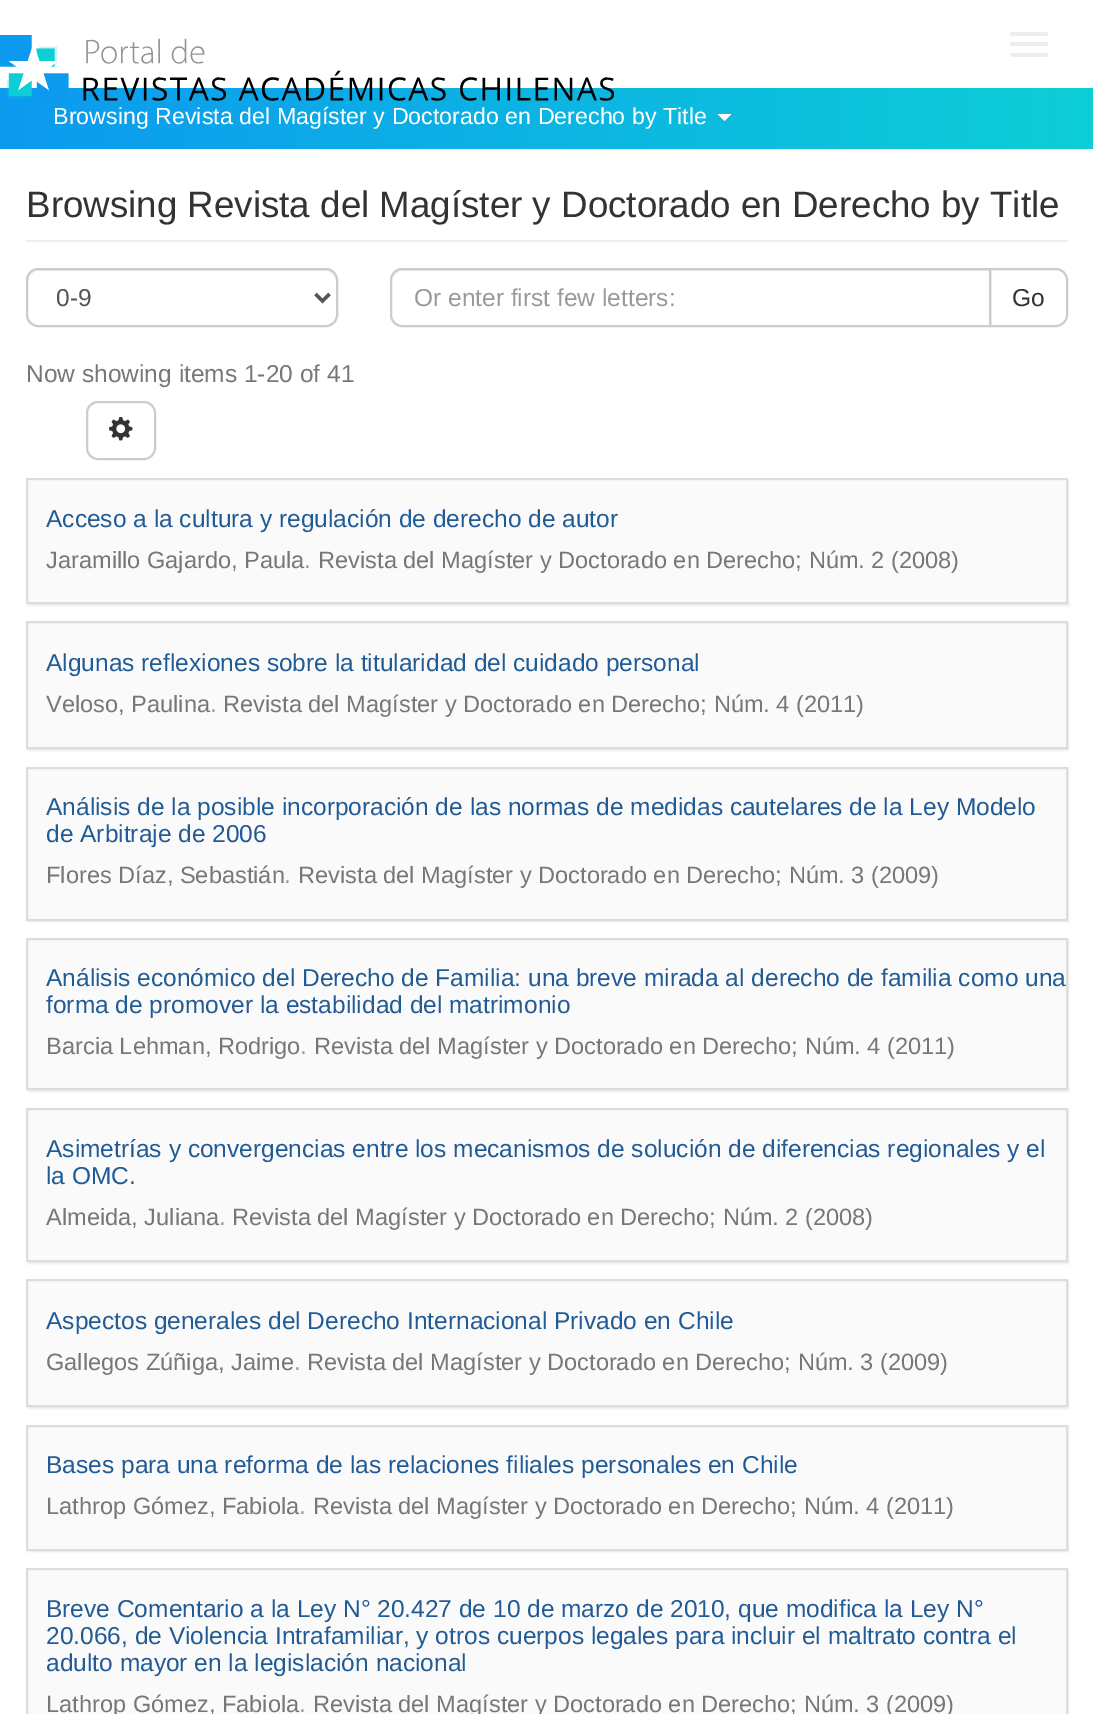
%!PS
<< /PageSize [1093 1714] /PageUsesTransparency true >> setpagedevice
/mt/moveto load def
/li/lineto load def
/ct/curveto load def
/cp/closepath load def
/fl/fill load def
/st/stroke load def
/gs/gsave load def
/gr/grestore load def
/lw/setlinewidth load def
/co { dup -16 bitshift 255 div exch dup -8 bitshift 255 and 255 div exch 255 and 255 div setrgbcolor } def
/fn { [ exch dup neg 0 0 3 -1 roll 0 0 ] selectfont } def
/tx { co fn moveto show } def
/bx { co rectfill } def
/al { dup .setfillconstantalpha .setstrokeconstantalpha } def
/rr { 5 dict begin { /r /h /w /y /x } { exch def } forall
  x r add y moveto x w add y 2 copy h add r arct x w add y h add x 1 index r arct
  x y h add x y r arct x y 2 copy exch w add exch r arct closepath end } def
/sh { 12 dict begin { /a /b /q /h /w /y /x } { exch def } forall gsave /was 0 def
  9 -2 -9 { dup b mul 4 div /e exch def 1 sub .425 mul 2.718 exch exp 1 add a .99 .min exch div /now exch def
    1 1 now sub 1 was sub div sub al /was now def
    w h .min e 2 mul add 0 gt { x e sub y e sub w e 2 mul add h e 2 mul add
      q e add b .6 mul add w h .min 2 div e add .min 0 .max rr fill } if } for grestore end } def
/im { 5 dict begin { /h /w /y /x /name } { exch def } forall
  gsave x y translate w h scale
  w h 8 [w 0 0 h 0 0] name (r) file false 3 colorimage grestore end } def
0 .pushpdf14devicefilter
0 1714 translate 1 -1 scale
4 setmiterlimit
0 0 1093 1714 16#FFFFFF bx
gs 0 88 mt 1093 88 li 1093 149 li 0 149 li cp clip newpath
<< /ShadingType 2 /ColorSpace /DeviceRGB /Coords [0 118 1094 118] /Extend [true true] /Function << /FunctionType 2 /Domain [0 1] /C0 [.047 .604 .941] /C1 [.051 .808 .839] /N 1 >> >> shfill gr
(media/1.raw) 0 35 614 66 im
16#EEEEEE co
1010 32 38 4 2 rr fl
1010 42 38 4 2 rr fl
1010 53 38 4 2 rr fl
16#FFFFFF co
717.5 114 mt 731.5 114 li 724.5 121 li cp fl
26 240 1042 2 16#EEEEEE bx
16#ECECEC co
38 271 mt 326 271 li 331 271 336 276 336 282 ct 336 281 li 336 275 331 270 325 270 ct 39 270 li 33 270 28 275 28 281 ct 28 282 li 28 276 33 271 38 271 ct cp fl
16#CCCCCC co
2 lw
27 269 310 57 11 rr st
16#555555 co
3.5 lw
315.5 294 mt 322.5 301 li 329.5 294 li st
16#CCCCCC co
2 lw
990 269 mt 1056 269 li 1062 269 1067 274 1067 280 ct 1067 315 li 1067 321 1062 326 1056 326 ct 990 326 li cp st
16#FFFFFF co
402 268 mt 991 268 li 991 327 li 402 327 li 395.5 327 390 321.5 390 315 ct 390 280 li 390 273.5 395.5 268 402 268 ct cp fl
16#ECECEC co
402 271 mt 989 271 li 989 270 li 403 270 li 396 270 392 276 392 282 ct 392 276 397 271 402 271 ct cp fl
16#CCCCCC co
402 269 mt 990 269 li 990 326 li 402 326 li 396 326 391 321 391 315 ct 391 280 li 391 274 396 269 402 269 ct cp st
87 402 68 57 11 rr st
(media/2.raw) 109 417 24 24 im
gs
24 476 mt 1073 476 li 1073 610 li 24 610 li cp 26 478 mt 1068 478 li 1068 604 li 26 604 li cp eoclip newpath
16#AAAAAA co
28 480 1041 126 0 1 .21 sh
gr
0.21 al
16#E6E6E6 co
27 479 mt 1067 479 li 1067 603 li 27 603 li cp fl
1 al
16#DDDDDD co
27 479 mt 1067 479 li 1067 603 li 27 603 li cp st
gs
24 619 mt 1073 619 li 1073 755 li 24 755 li cp 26 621 mt 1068 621 li 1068 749 li 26 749 li cp eoclip newpath
16#AAAAAA co
28 623 1041 128 0 1 .21 sh
gr
0.21 al
16#E6E6E6 co
27 622 mt 1067 622 li 1067 748 li 27 748 li cp fl
1 al
16#DDDDDD co
27 622 mt 1067 622 li 1067 748 li 27 748 li cp st
gs
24 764 mt 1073 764 li 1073 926 li 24 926 li cp 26 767 mt 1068 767 li 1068 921 li 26 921 li cp eoclip newpath
16#AAAAAA co
28 768 1041 154 0 1 .21 sh
gr
0.21 al
16#E6E6E6 co
27 768 mt 1067 768 li 1067 920 li 27 920 li cp fl
1 al
16#DDDDDD co
27 768 mt 1067 768 li 1067 920 li 27 920 li cp st
gs
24 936 mt 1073 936 li 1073 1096 li 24 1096 li cp 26 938 mt 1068 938 li 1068 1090 li 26 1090 li cp eoclip newpath
16#AAAAAA co
28 940 1041 152 0 1 .21 sh
gr
0.21 al
16#E6E6E6 co
27 939 mt 1067 939 li 1067 1089 li 27 1089 li cp fl
1 al
16#DDDDDD co
27 939 mt 1067 939 li 1067 1089 li 27 1089 li cp st
gs
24 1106 mt 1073 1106 li 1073 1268 li 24 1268 li cp 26 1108 mt 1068 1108 li 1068 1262 li 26 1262 li cp eoclip newpath
16#AAAAAA co
28 1110 1041 154 0 1 .21 sh
gr
0.21 al
16#E6E6E6 co
27 1109 mt 1067 1109 li 1067 1261 li 27 1261 li cp fl
1 al
16#DDDDDD co
27 1109 mt 1067 1109 li 1067 1261 li 27 1261 li cp st
gs
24 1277 mt 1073 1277 li 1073 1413 li 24 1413 li cp 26 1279 mt 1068 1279 li 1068 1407 li 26 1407 li cp eoclip newpath
16#AAAAAA co
28 1281 1041 128 0 1 .21 sh
gr
0.21 al
16#E6E6E6 co
27 1280 mt 1067 1280 li 1067 1406 li 27 1406 li cp fl
1 al
16#DDDDDD co
27 1280 mt 1067 1280 li 1067 1406 li 27 1406 li cp st
gs
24 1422 mt 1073 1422 li 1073 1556 li 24 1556 li cp 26 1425 mt 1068 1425 li 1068 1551 li 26 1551 li cp eoclip newpath
16#AAAAAA co
28 1426 1041 126 0 1 .21 sh
gr
0.21 al
16#E6E6E6 co
27 1426 mt 1067 1426 li 1067 1550 li 27 1550 li cp fl
1 al
16#DDDDDD co
27 1426 mt 1067 1426 li 1067 1550 li 27 1550 li cp st
gs
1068 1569 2 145 rectclip
16#AAAAAA co
28 1570 1041 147 0 1 .21 sh
gr
0.21 al
16#E6E6E6 co
27 1569 mt 1067 1569 li 1067 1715 li 27 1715 li cp fl
1 al
16#DDDDDD co
27 1569 mt 1067 1569 li 1067 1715 li 27 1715 li cp st
(Browsing Revista del Magíster y Doctorado en Derecho by Title) 53 124 /LiberationSans-Regular 23.25 16#FFFFFF tx
(Browsing Revista del Magíster y Doctorado en Derecho by Title) 26 217 /LiberationSans-Regular 36.75 16#333333 tx
(0-9) 56 306 /LiberationSans-Regular 24.5 16#555555 tx
(Or enter first few letters:) 414 306 /LiberationSans-Regular 24.5 16#999999 tx
(Go) 1012 306 /LiberationSans-Regular 24.5 16#333333 tx
(Now showing items 1-20 of 41) 26 382 /LiberationSans-Regular 24.5 16#777777 tx
(Acceso a la cultura y regulación de derecho de autor) 46 527 /LiberationSans-Regular 24.5 16#215B95 tx
(Jaramillo Gajardo, Paula) 46 568 /LiberationSans-Regular 23.6 16#777777 tx
(.) 304 568 /LiberationSans-Regular 24.5 16#999999 tx
(Revista del Magíster y Doctorado en Derecho; Núm. 2 \(2008\)) 318 568 /LiberationSans-Regular 23.6 16#777777 tx
(Algunas reflexiones sobre la titularidad del cuidado personal) 46 671 /LiberationSans-Regular 24.5 16#215B95 tx
(Veloso, Paulina) 46 712 /LiberationSans-Regular 23.6 16#777777 tx
(.) 210 712 /LiberationSans-Regular 24.5 16#999999 tx
(Revista del Magíster y Doctorado en Derecho; Núm. 4 \(2011\)) 223 712 /LiberationSans-Regular 23.6 16#777777 tx
(Análisis de la posible incorporación de las normas de medidas cautelares de la Ley Modelo) 46 815 /LiberationSans-Regular 24.5 16#215B95 tx
(de Arbitraje de 2006) 46 842 /LiberationSans-Regular 24.5 16#215B95 tx
(Flores Díaz, Sebastián) 46 883 /LiberationSans-Regular 23.6 16#777777 tx
(.) 284 883 /LiberationSans-Regular 24.5 16#999999 tx
(Revista del Magíster y Doctorado en Derecho; Núm. 3 \(2009\)) 298 883 /LiberationSans-Regular 23.6 16#777777 tx
(Análisis económico del Derecho de Familia: una breve mirada al derecho de familia como una) 46 986 /LiberationSans-Regular 24.5 16#215B95 tx
(forma de promover la estabilidad del matrimonio) 46 1013 /LiberationSans-Regular 24.5 16#215B95 tx
(Barcia Lehman, Rodrigo) 46 1054 /LiberationSans-Regular 23.6 16#777777 tx
(.) 300 1054 /LiberationSans-Regular 24.5 16#999999 tx
(Revista del Magíster y Doctorado en Derecho; Núm. 4 \(2011\)) 314 1054 /LiberationSans-Regular 23.6 16#777777 tx
(Asimetrías y convergencias entre los mecanismos de solución de diferencias regionales y el) 46 1157 /LiberationSans-Regular 24.5 16#215B95 tx
(la OMC.) 46 1184 /LiberationSans-Regular 24.5 16#215B95 tx
(Almeida, Juliana) 46 1225 /LiberationSans-Regular 23.6 16#777777 tx
(.) 219 1225 /LiberationSans-Regular 24.5 16#999999 tx
(Revista del Magíster y Doctorado en Derecho; Núm. 2 \(2008\)) 232 1225 /LiberationSans-Regular 23.6 16#777777 tx
(Aspectos generales del Derecho Internacional Privado en Chile) 46 1329 /LiberationSans-Regular 24.5 16#215B95 tx
(Gallegos Zúñiga, Jaime) 46 1370 /LiberationSans-Regular 23.6 16#777777 tx
(.) 294 1370 /LiberationSans-Regular 24.5 16#999999 tx
(Revista del Magíster y Doctorado en Derecho; Núm. 3 \(2009\)) 307 1370 /LiberationSans-Regular 23.6 16#777777 tx
(Bases para una reforma de las relaciones filiales personales en Chile) 46 1473 /LiberationSans-Regular 24.5 16#215B95 tx
(Lathrop Gómez, Fabiola) 46 1514 /LiberationSans-Regular 23.6 16#777777 tx
(.) 299 1514 /LiberationSans-Regular 24.5 16#999999 tx
(Revista del Magíster y Doctorado en Derecho; Núm. 4 \(2011\)) 313 1514 /LiberationSans-Regular 23.6 16#777777 tx
(Breve Comentario a la Ley N° 20.427 de 10 de marzo de 2010, que modifica la Ley N°) 46 1617 /LiberationSans-Regular 24.5 16#215B95 tx
(20.066, de Violencia Intrafamiliar, y otros cuerpos legales para incluir el maltrato contra el) 46 1644 /LiberationSans-Regular 24.5 16#215B95 tx
(adulto mayor en la legislación nacional) 46 1671 /LiberationSans-Regular 24.5 16#215B95 tx
(Lathrop Gómez, Fabiola) 46 1712 /LiberationSans-Regular 23.6 16#777777 tx
(.) 299 1712 /LiberationSans-Regular 24.5 16#999999 tx
(Revista del Magíster y Doctorado en Derecho; Núm. 3 \(2009\)) 313 1712 /LiberationSans-Regular 23.6 16#777777 tx
.poppdf14devicefilter showpage
